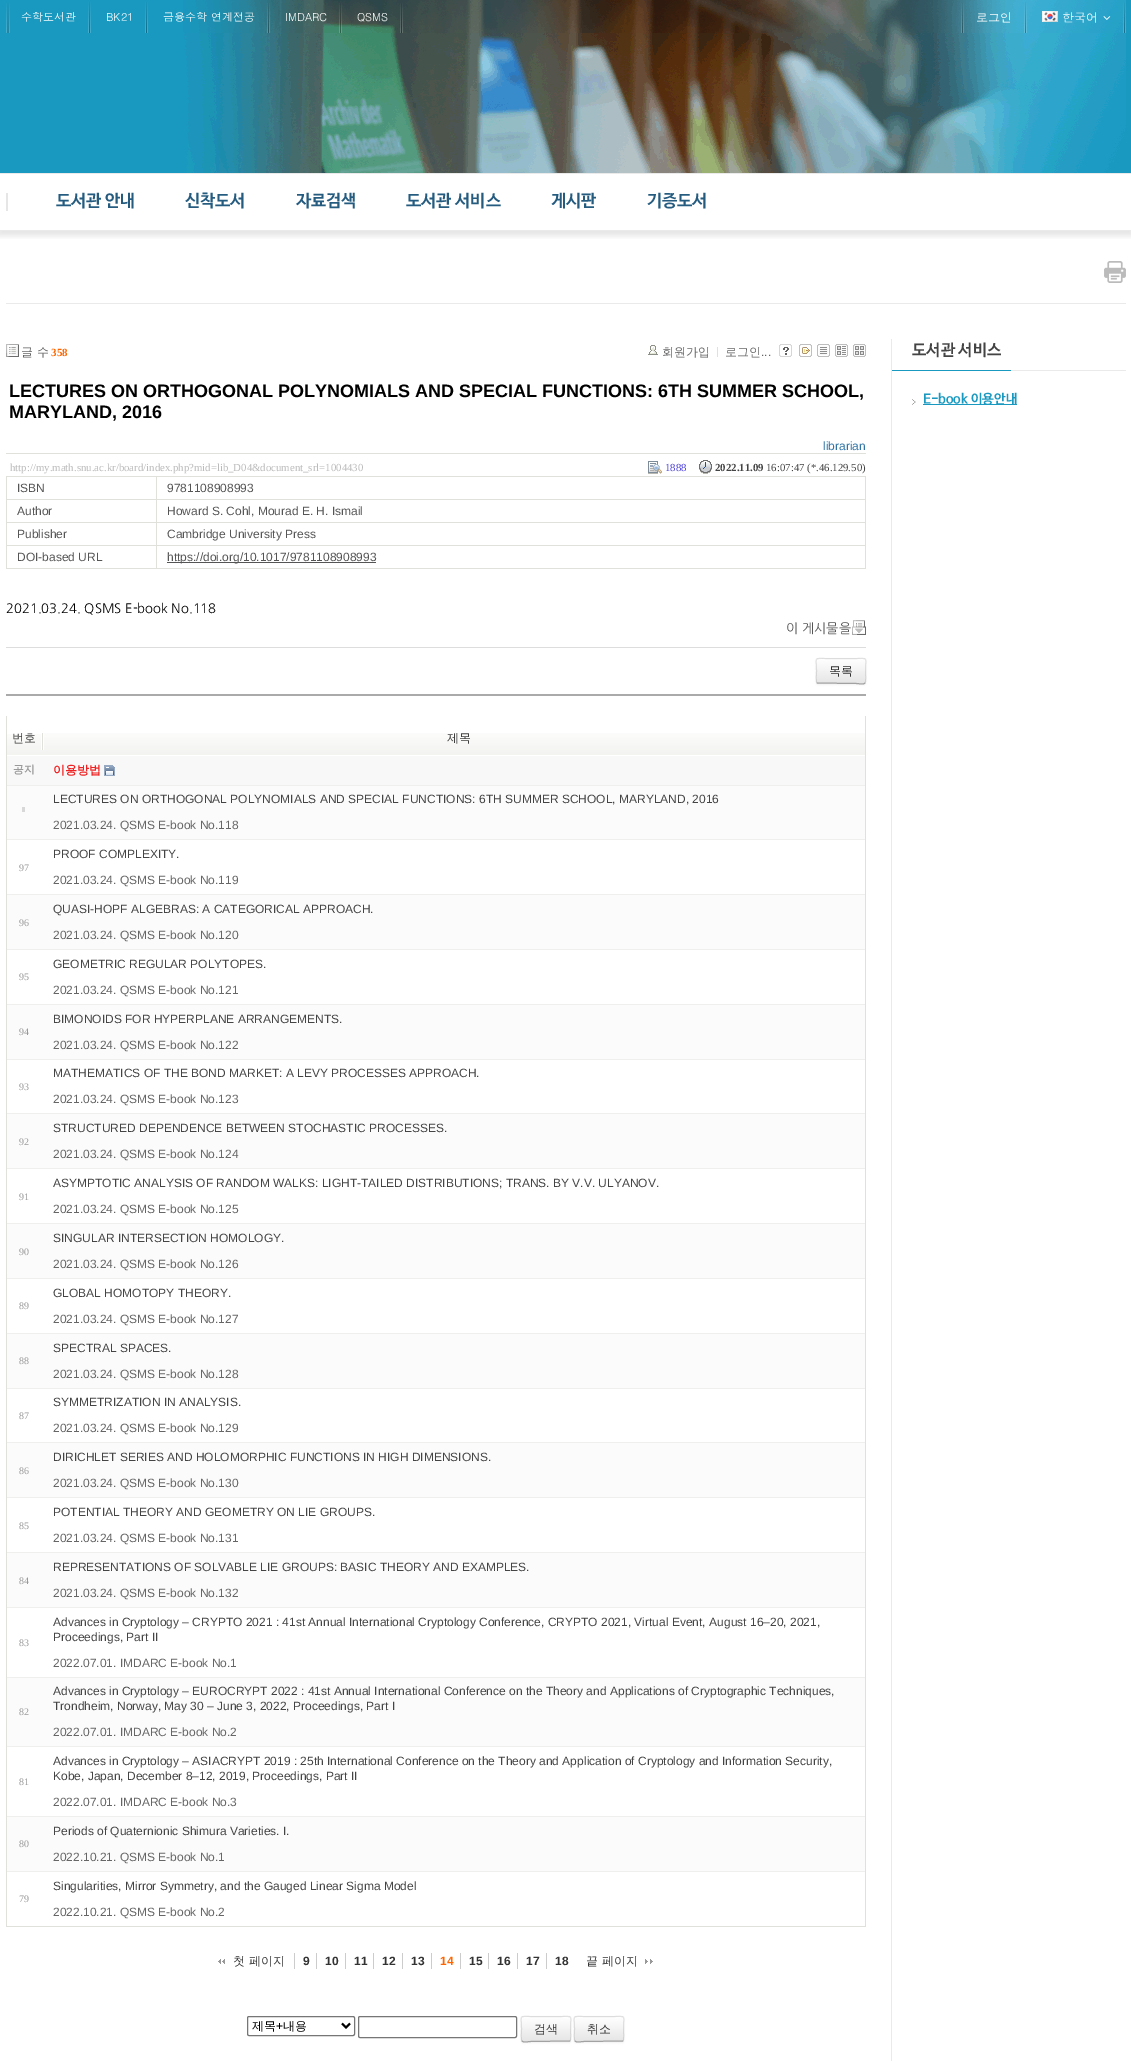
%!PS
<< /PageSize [1131 2061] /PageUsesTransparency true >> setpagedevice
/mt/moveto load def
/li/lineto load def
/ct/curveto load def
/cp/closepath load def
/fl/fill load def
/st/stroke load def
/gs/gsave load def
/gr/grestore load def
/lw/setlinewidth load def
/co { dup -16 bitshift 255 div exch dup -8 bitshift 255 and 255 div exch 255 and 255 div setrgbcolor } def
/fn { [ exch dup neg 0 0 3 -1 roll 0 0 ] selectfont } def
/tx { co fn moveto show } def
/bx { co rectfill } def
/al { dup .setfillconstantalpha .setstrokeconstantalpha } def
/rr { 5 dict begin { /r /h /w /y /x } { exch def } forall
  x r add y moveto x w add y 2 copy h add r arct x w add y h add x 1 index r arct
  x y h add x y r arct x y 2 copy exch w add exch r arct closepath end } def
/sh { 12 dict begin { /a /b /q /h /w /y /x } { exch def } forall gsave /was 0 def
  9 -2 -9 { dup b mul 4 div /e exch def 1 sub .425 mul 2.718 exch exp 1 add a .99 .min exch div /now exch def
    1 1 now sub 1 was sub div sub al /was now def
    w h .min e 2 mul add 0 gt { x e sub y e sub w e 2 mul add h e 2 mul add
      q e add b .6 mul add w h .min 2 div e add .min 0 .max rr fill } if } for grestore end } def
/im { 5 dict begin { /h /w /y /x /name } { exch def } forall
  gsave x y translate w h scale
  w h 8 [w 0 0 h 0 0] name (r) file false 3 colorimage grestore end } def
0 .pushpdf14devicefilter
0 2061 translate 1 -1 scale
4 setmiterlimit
0 0 1131 2061 16#FFFFFF bx
gs
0 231 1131 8 rectclip
16#000000 co
-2 174 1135 62 0 3 .1 sh
gr
0 0 1131 173 16#1999C0 bx
(media/1.raw) 183 0 943 33 im
(media/2.raw) 6 3 4 30 im
(media/3.raw) 88 2 3 31 im
(media/3.raw) 145 2 3 31 im
(media/4.raw) 267 3 3 30 im
(media/5.raw) 339 3 3 30 im
(media/6.raw) 400 3 3 30 im
(media/7.raw) 961 3 3 30 im
(media/8.raw) 1024 2 3 31 im
(media/9.raw) 1123 2 3 31 im
(media/10.raw) 1042 11 16 11 im
(media/11.raw) 1103 16 8 4 im
(media/12.raw) 184 33 942 140 im
0 173 1131 1 16#EAEAEA bx
0 230 1131 1 16#EAEAEA bx
6 193 2 18 16#E6E6E6 bx
6 303 1120 1 16#EAEAEA bx
(media/13.raw) 1104 261 22 22 im
891 339 1 1722 16#EAEAEA bx
(media/14.raw) 6 344 13 13 im
(media/15.raw) 648 345 10 10 im
717 347 1 10 16#E0E0E0 bx
(media/16.raw) 779 344 13 13 im
(media/17.raw) 799 344 13 13 im
(media/18.raw) 817 344 13 13 im
(media/19.raw) 835 344 13 13 im
(media/20.raw) 853 344 13 13 im
6 694 860 2 16#AAAAAA bx
6 453 860 1 16#E0E1DB bx
(media/21.raw) 648 461 14 13 im
(media/22.raw) 699 460 13 14 im
6 476 860 1 16#E0E1DB bx
865 476 1 93 16#E0E1DB bx
6 476 1 93 16#E0E1DB bx
156 568 710 1 16#E0E1DB bx
156 545 1 24 16#E0E1DB bx
156 545 710 1 16#E0E1DB bx
156 522 1 24 16#E0E1DB bx
156 522 710 1 16#E0E1DB bx
156 499 1 24 16#E0E1DB bx
156 499 710 1 16#E0E1DB bx
156 476 1 24 16#E0E1DB bx
6 499 151 1 16#E0E1DB bx
6 522 151 1 16#E0E1DB bx
6 545 151 1 16#E0E1DB bx
6 568 151 1 16#E0E1DB bx
167 562 209 1 16#555555 bx
(media/23.raw) 852 620 14 15 im
6 647 860 1 16#DDDDDD bx
16#000000 co
816 659 50 26 2 1 .05 sh
16#F5F5F5 co
816 658 50 26 2 rr fl
gs
816 658 50 26 2 rr clip newpath
gs 816 659 mt 866 659 li 866 683 li 816 683 li cp clip newpath
<< /ShadingType 2 /ColorSpace /DeviceRGB /Coords [841 659 841 683] /Extend [true true] /Function << /FunctionType 2 /Domain [0 1] /C0 [1 1 1] /C1 [.902 .902 .902] /N 1 >> >> shfill gr
gr
16#FEFEFE co
818 660 mt 864 660 li 865 661 li 865 657 862 659 856 659 ct 826 659 li 819 659 817 657 817 662 ct cp fl
16#A2A2A2 co
865 683 mt 863 685 859.5 683.5 856.5 683.5 ct 817 683 li st
0.1 al
16#000000 co
817 683 mt 815.5 681.5 816.5 673 816.5 671 ct 816.5 657 813.5 658.5 825.5 658.5 ct 856.5 658.5 li 868.5 658.5 865.5 657 865.5 671 ct 865.5 673 866.5 681.5 865 683 ct st
1 al
865 716 1 1211 16#E0E1DB bx
6 1926 860 1 16#E0E1DB bx
6 716 1 1211 16#E0E1DB bx
(media/24.raw) 7 734 34 21 im
(media/25.raw) 41 733 824 22 im
7 756 858 29 16#F8F8F8 bx
(media/26.raw) 104 765 11 11 im
7 786 858 53 16#FBFBFB bx
7 785 858 1 16#EFF0ED bx
22 807 3 5 16#D8D8D8 bx
7 839 858 1 16#EFF0ED bx
7 895 858 54 16#FBFBFB bx
7 894 858 1 16#EFF0ED bx
7 949 858 1 16#EFF0ED bx
7 1005 858 54 16#FBFBFB bx
7 1004 858 1 16#EFF0ED bx
7 1059 858 1 16#EFF0ED bx
7 1114 858 54 16#FBFBFB bx
7 1113 858 1 16#EFF0ED bx
7 1168 858 1 16#EFF0ED bx
7 1224 858 54 16#FBFBFB bx
7 1223 858 1 16#EFF0ED bx
7 1278 858 1 16#EFF0ED bx
7 1334 858 54 16#FBFBFB bx
7 1333 858 1 16#EFF0ED bx
7 1388 858 1 16#EFF0ED bx
7 1443 858 54 16#FBFBFB bx
7 1442 858 1 16#EFF0ED bx
7 1497 858 1 16#EFF0ED bx
7 1553 858 54 16#FBFBFB bx
7 1552 858 1 16#EFF0ED bx
7 1607 858 1 16#EFF0ED bx
7 1678 858 68 16#FBFBFB bx
7 1677 858 1 16#EFF0ED bx
7 1746 858 1 16#EFF0ED bx
7 1817 858 54 16#FBFBFB bx
7 1816 858 1 16#EFF0ED bx
7 1871 858 1 16#EFF0ED bx
(media/27.raw) 218 1959 7 5 im
294 1953 1 16 16#CCCCCC bx
316 1953 1 16 16#CCCCCC bx
345 1953 1 16 16#CCCCCC bx
373 1953 1 16 16#CCCCCC bx
402 1953 1 16 16#CCCCCC bx
431 1953 1 16 16#CCCCCC bx
460 1953 1 16 16#CCCCCC bx
488 1953 1 16 16#CCCCCC bx
517 1953 1 16 16#CCCCCC bx
546 1953 1 16 16#CCCCCC bx
(media/28.raw) 645 1959 8 5 im
16#767676 co
247.5 2016.5 107 19 1.5 rr st
16#000000 co
2 lw
342 2023.5 mt 346 2027.5 li 350 2023.5 li st
16#767676 co
1 lw
358.5 2016.5 158 21 1.5 rr st
16#000000 co
521 2017 50 26 2 1 .05 sh
16#F5F5F5 co
521 2016 50 26 2 rr fl
gs
521 2016 50 26 2 rr clip newpath
gs 521 2017 mt 571 2017 li 571 2041 li 521 2041 li cp clip newpath
<< /ShadingType 2 /ColorSpace /DeviceRGB /Coords [546 2017 546 2041] /Extend [true true] /Function << /FunctionType 2 /Domain [0 1] /C0 [1 1 1] /C1 [.902 .902 .902] /N 1 >> >> shfill gr
gr
16#FEFEFE co
523 2018 mt 569 2018 li 570 2019 li 570 2015 567 2017 561 2017 ct 531 2017 li 524 2017 522 2015 522 2020 ct cp fl
16#A2A2A2 co
570 2041 mt 530.5 2041.5 li 527.5 2041.5 524 2043 522 2041 ct st
0.1 al
16#000000 co
522 2041 mt 520.5 2039.5 521.5 2031 521.5 2029 ct 521.5 2015 518.5 2016.5 530.5 2016.5 ct 561.5 2016.5 li 573.5 2016.5 570.5 2015 570.5 2029 ct 570.5 2031 571.5 2039.5 570 2041 ct st
1 al
574 2017 50 26 2 1 .05 sh
16#F5F5F5 co
574 2016 50 26 2 rr fl
gs
574 2016 50 26 2 rr clip newpath
gs 574 2017 mt 624 2017 li 624 2041 li 574 2041 li cp clip newpath
<< /ShadingType 2 /ColorSpace /DeviceRGB /Coords [599 2017 599 2041] /Extend [true true] /Function << /FunctionType 2 /Domain [0 1] /C0 [1 1 1] /C1 [.902 .902 .902] /N 1 >> >> shfill gr
gr
16#FEFEFE co
576 2018 mt 622 2018 li 623 2019 li 623 2015 620 2017 614 2017 ct 584 2017 li 577 2017 575 2015 575 2020 ct cp fl
16#A2A2A2 co
623 2041 mt 583.5 2041.5 li 580.5 2041.5 577 2043 575 2041 ct st
0.1 al
16#000000 co
575 2041 mt 573.5 2039.5 574.5 2031 574.5 2029 ct 574.5 2015 571.5 2016.5 583.5 2016.5 ct 614.5 2016.5 li 626.5 2016.5 623.5 2015 623.5 2029 ct 623.5 2031 624.5 2039.5 623 2041 ct st
1 al
1011 370 115 1 16#EAEAEA bx
892 370 119 1 16#1999C0 bx
(media/29.raw) 912 399 4 6 im
923 404 94 1 16#1999C0 bx
(수학도서관) 21 21 /Dotum-Regular 11 16#FFFFFF tx
(BK21) 106 21 /Dotum-Regular 11 16#FFFFFF tx
(금융수학 연계전공) 163 21 /Dotum-Regular 11 16#FFFFFF tx
(IMDARC) 285 21 /Dotum-Regular 11 16#FFFFFF tx
(QSMS) 357 21 /Dotum-Regular 11 16#FFFFFF tx
(로그인) 976 22 /Dotum-Regular 12 16#FFFFFF tx
(한국어) 1062 22 /Dotum-Regular 12 16#FFFFFF tx
(도서관 안내) 56 206 /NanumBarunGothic-Bold 17 16#245B7F tx
(신착도서) 185 206 /NanumBarunGothic-Bold 17 16#245B7F tx
(자료검색) 296 206 /NanumBarunGothic-Bold 17 16#245B7F tx
(도서관 서비스) 406 206 /NanumBarunGothic-Bold 17 16#245B7F tx
(게시판) 551 206 /NanumBarunGothic-Bold 17 16#245B7F tx
(기증도서) 647 206 /NanumBarunGothic-Bold 17 16#245B7F tx
(글 수) 21 356 /WenQuanYiZenHei-Medium 12 16#666666 tx
(358) 51 356 /LiberationSerif-Bold 11 16#FF6600 tx
(회원가입) 662 356 /WenQuanYiZenHei-Medium 12 16#666666 tx
(로그인) 725 356 /WenQuanYiZenHei-Medium 12 16#666666 tx
(...) 761 356 /LiberationSans-Regular 12 16#666666 tx
(LECTURES ON ORTHOGONAL POLYNOMIALS AND SPECIAL FUNCTIONS: 6TH SUMMER SCHOOL,) 9 397 /LiberationSans-Bold 18 16#000000 tx
(MARYLAND, 2016) 9 418 /LiberationSans-Bold 18 16#000000 tx
(librarian) 823 450 /LiberationSans-Regular 12 16#3074A5 tx
(http://my.math.snu.ac.kr/board/index.php?mid=lib_D04&document_srl=1004430) 10 471 /LiberationSerif-Regular 10.8 16#BBBBBB tx
(1888) 665 471 /LiberationSerif-Regular 10.8 16#4A3FD7 tx
(2022.11.09) 715 471 /LiberationSerif-Bold 10.8 16#444444 tx
(16:07:47 \(*.46.129.50\)) 766 471 /LiberationSerif-Regular 10.8 16#444444 tx
(ISBN) 17 492 /LiberationSans-Regular 12 16#555555 tx
(9781108908993) 167 492 /LiberationSans-Regular 12 16#555555 tx
(Author) 17 515 /LiberationSans-Regular 12 16#555555 tx
(Howard S. Cohl, Mourad E. H. Ismail) 167 515 /LiberationSans-Regular 12 16#555555 tx
(Publisher) 17 538 /LiberationSans-Regular 12 16#555555 tx
(Cambridge University Press) 167 538 /LiberationSans-Regular 12 16#555555 tx
(DOI-based URL) 17 561 /LiberationSans-Regular 12 16#555555 tx
(https://doi.org/10.1017/9781108908993) 167 561 /LiberationSans-Regular 12 16#555555 tx
(2021.03.24. QSMS E-book No.118) 6 613 /NanumGothic-Regular 13 16#000000 tx
(이 게시물을) 786 633 /NanumGothic-Regular 13 16#555555 tx
(목록) 829 675 /WenQuanYiZenHei-Medium 12 16#333333 tx
(번호) 12 742 /WenQuanYiZenHei-Medium 12 16#3E3F3E tx
(제목) 447 742 /WenQuanYiZenHei-Medium 12 16#3E3F3E tx
(공지) 13 773 /WenQuanYiZenHei-Bold 10.8 16#999999 tx
(이용방법) 53 774 /WenQuanYiZenHei-Bold 12 16#EE2222 tx
(LECTURES ON ORTHOGONAL POLYNOMIALS AND SPECIAL FUNCTIONS: 6TH SUMMER SCHOOL, MARYLAND, 2016) 53 803 /LiberationSans-Regular 12 16#444444 tx
(2021.03.24. QSMS E-book No.118) 53 829 /LiberationSans-Regular 12 16#666666 tx
(PROOF COMPLEXITY.) 53 858 /LiberationSans-Regular 12 16#444444 tx
(97) 19 871 /LiberationSerif-Regular 10 16#999999 tx
(2021.03.24. QSMS E-book No.119) 53 884 /LiberationSans-Regular 12 16#666666 tx
(QUASI-HOPF ALGEBRAS: A CATEGORICAL APPROACH.) 53 913 /LiberationSans-Regular 12 16#444444 tx
(96) 19 926 /LiberationSerif-Regular 10 16#999999 tx
(2021.03.24. QSMS E-book No.120) 53 939 /LiberationSans-Regular 12 16#666666 tx
(GEOMETRIC REGULAR POLYTOPES.) 53 968 /LiberationSans-Regular 12 16#444444 tx
(95) 19 980 /LiberationSerif-Regular 10 16#999999 tx
(2021.03.24. QSMS E-book No.121) 53 994 /LiberationSans-Regular 12 16#666666 tx
(BIMONOIDS FOR HYPERPLANE ARRANGEMENTS.) 53 1023 /LiberationSans-Regular 12 16#444444 tx
(94) 19 1035 /LiberationSerif-Regular 10 16#999999 tx
(2021.03.24. QSMS E-book No.122) 53 1049 /LiberationSans-Regular 12 16#666666 tx
(MATHEMATICS OF THE BOND MARKET: A LEVY PROCESSES APPROACH.) 53 1077 /LiberationSans-Regular 12 16#444444 tx
(93) 19 1090 /LiberationSerif-Regular 10 16#999999 tx
(2021.03.24. QSMS E-book No.123) 53 1103 /LiberationSans-Regular 12 16#666666 tx
(STRUCTURED DEPENDENCE BETWEEN STOCHASTIC PROCESSES.) 53 1132 /LiberationSans-Regular 12 16#444444 tx
(92) 19 1145 /LiberationSerif-Regular 10 16#999999 tx
(2021.03.24. QSMS E-book No.124) 53 1158 /LiberationSans-Regular 12 16#666666 tx
(ASYMPTOTIC ANALYSIS OF RANDOM WALKS: LIGHT-TAILED DISTRIBUTIONS; TRANS. BY V.V. ULYANOV.) 53 1187 /LiberationSans-Regular 12 16#444444 tx
(91) 19 1200 /LiberationSerif-Regular 10 16#999999 tx
(2021.03.24. QSMS E-book No.125) 53 1213 /LiberationSans-Regular 12 16#666666 tx
(SINGULAR INTERSECTION HOMOLOGY.) 53 1242 /LiberationSans-Regular 12 16#444444 tx
(90) 19 1255 /LiberationSerif-Regular 10 16#999999 tx
(2021.03.24. QSMS E-book No.126) 53 1268 /LiberationSans-Regular 12 16#666666 tx
(GLOBAL HOMOTOPY THEORY.) 53 1297 /LiberationSans-Regular 12 16#444444 tx
(89) 19 1309 /LiberationSerif-Regular 10 16#999999 tx
(2021.03.24. QSMS E-book No.127) 53 1323 /LiberationSans-Regular 12 16#666666 tx
(SPECTRAL SPACES.) 53 1352 /LiberationSans-Regular 12 16#444444 tx
(88) 19 1364 /LiberationSerif-Regular 10 16#999999 tx
(2021.03.24. QSMS E-book No.128) 53 1378 /LiberationSans-Regular 12 16#666666 tx
(SYMMETRIZATION IN ANALYSIS.) 53 1406 /LiberationSans-Regular 12 16#444444 tx
(87) 19 1419 /LiberationSerif-Regular 10 16#999999 tx
(2021.03.24. QSMS E-book No.129) 53 1432 /LiberationSans-Regular 12 16#666666 tx
(DIRICHLET SERIES AND HOLOMORPHIC FUNCTIONS IN HIGH DIMENSIONS.) 53 1461 /LiberationSans-Regular 12 16#444444 tx
(86) 19 1474 /LiberationSerif-Regular 10 16#999999 tx
(2021.03.24. QSMS E-book No.130) 53 1487 /LiberationSans-Regular 12 16#666666 tx
(POTENTIAL THEORY AND GEOMETRY ON LIE GROUPS.) 53 1516 /LiberationSans-Regular 12 16#444444 tx
(85) 19 1529 /LiberationSerif-Regular 10 16#999999 tx
(2021.03.24. QSMS E-book No.131) 53 1542 /LiberationSans-Regular 12 16#666666 tx
(REPRESENTATIONS OF SOLVABLE LIE GROUPS: BASIC THEORY AND EXAMPLES.) 53 1571 /LiberationSans-Regular 12 16#444444 tx
(84) 19 1584 /LiberationSerif-Regular 10 16#999999 tx
(2021.03.24. QSMS E-book No.132) 53 1597 /LiberationSans-Regular 12 16#666666 tx
(83) 19 1646 /LiberationSerif-Regular 10 16#999999 tx
(Advances in Cryptology – CRYPTO 2021 : 41st Annual International Cryptology Conference, CRYPTO 2021, Virtual Event, August 16–20, 2021,) 53 1626 /LiberationSans-Regular 12 16#444444 tx
(Proceedings, Part II) 53 1641 /LiberationSans-Regular 12 16#444444 tx
(2022.07.01. IMDARC E-book No.1) 53 1667 /LiberationSans-Regular 12 16#666666 tx
(82) 19 1715 /LiberationSerif-Regular 10 16#999999 tx
(Advances in Cryptology – EUROCRYPT 2022 : 41st Annual International Conference on the Theory and Applications of Cryptographic Techniques,) 53 1695 /LiberationSans-Regular 12 16#444444 tx
(Trondheim, Norway, May 30 – June 3, 2022, Proceedings, Part I) 53 1710 /LiberationSans-Regular 12 16#444444 tx
(2022.07.01. IMDARC E-book No.2) 53 1736 /LiberationSans-Regular 12 16#666666 tx
(81) 19 1785 /LiberationSerif-Regular 10 16#999999 tx
(Advances in Cryptology – ASIACRYPT 2019 : 25th International Conference on the Theory and Application of Cryptology and Information Security,) 53 1765 /LiberationSans-Regular 12 16#444444 tx
(Kobe, Japan, December 8–12, 2019, Proceedings, Part II) 53 1780 /LiberationSans-Regular 12 16#444444 tx
(2022.07.01. IMDARC E-book No.3) 53 1806 /LiberationSans-Regular 12 16#666666 tx
(Periods of Quaternionic Shimura Varieties. I.) 53 1835 /LiberationSans-Regular 12 16#444444 tx
(80) 19 1847 /LiberationSerif-Regular 10 16#999999 tx
(2022.10.21. QSMS E-book No.1) 53 1861 /LiberationSans-Regular 12 16#666666 tx
(Singularities, Mirror Symmetry, and the Gauged Linear Sigma Model) 53 1890 /LiberationSans-Regular 12 16#444444 tx
(79) 19 1902 /LiberationSerif-Regular 10 16#999999 tx
(2022.10.21. QSMS E-book No.2) 53 1916 /LiberationSans-Regular 12 16#666666 tx
(첫 페이지) 233 1965 /WenQuanYiZenHei-Medium 12 16#333333 tx
(9) 303 1965 /LiberationSans-Bold 12 16#333333 tx
(10) 325 1965 /LiberationSans-Bold 12 16#333333 tx
(11) 354 1965 /LiberationSans-Bold 12 16#333333 tx
(12) 382 1965 /LiberationSans-Bold 12 16#333333 tx
(13) 411 1965 /LiberationSans-Bold 12 16#333333 tx
(14) 440 1965 /LiberationSans-Bold 12 16#FF6600 tx
(15) 469 1965 /LiberationSans-Bold 12 16#333333 tx
(16) 497 1965 /LiberationSans-Bold 12 16#333333 tx
(17) 526 1965 /LiberationSans-Bold 12 16#333333 tx
(18) 555 1965 /LiberationSans-Bold 12 16#333333 tx
(끝 페이지) 586 1965 /WenQuanYiZenHei-Medium 12 16#333333 tx
(제목) 252 2030 /WenQuanYiZenHei-Medium 12 16#000000 tx
(+) 276 2030 /LiberationSans-Regular 12 16#000000 tx
(내용) 283 2030 /WenQuanYiZenHei-Medium 12 16#000000 tx
(검색) 534 2033 /WenQuanYiZenHei-Medium 12 16#333333 tx
(취소) 587 2033 /WenQuanYiZenHei-Medium 12 16#333333 tx
(도서관 서비스) 912 355 /NanumBarunGothic-Bold 16 16#444444 tx
(E-book 이용안내) 923 403 /NanumBarunGothic-Bold 13 16#1999C0 tx
.poppdf14devicefilter showpage
